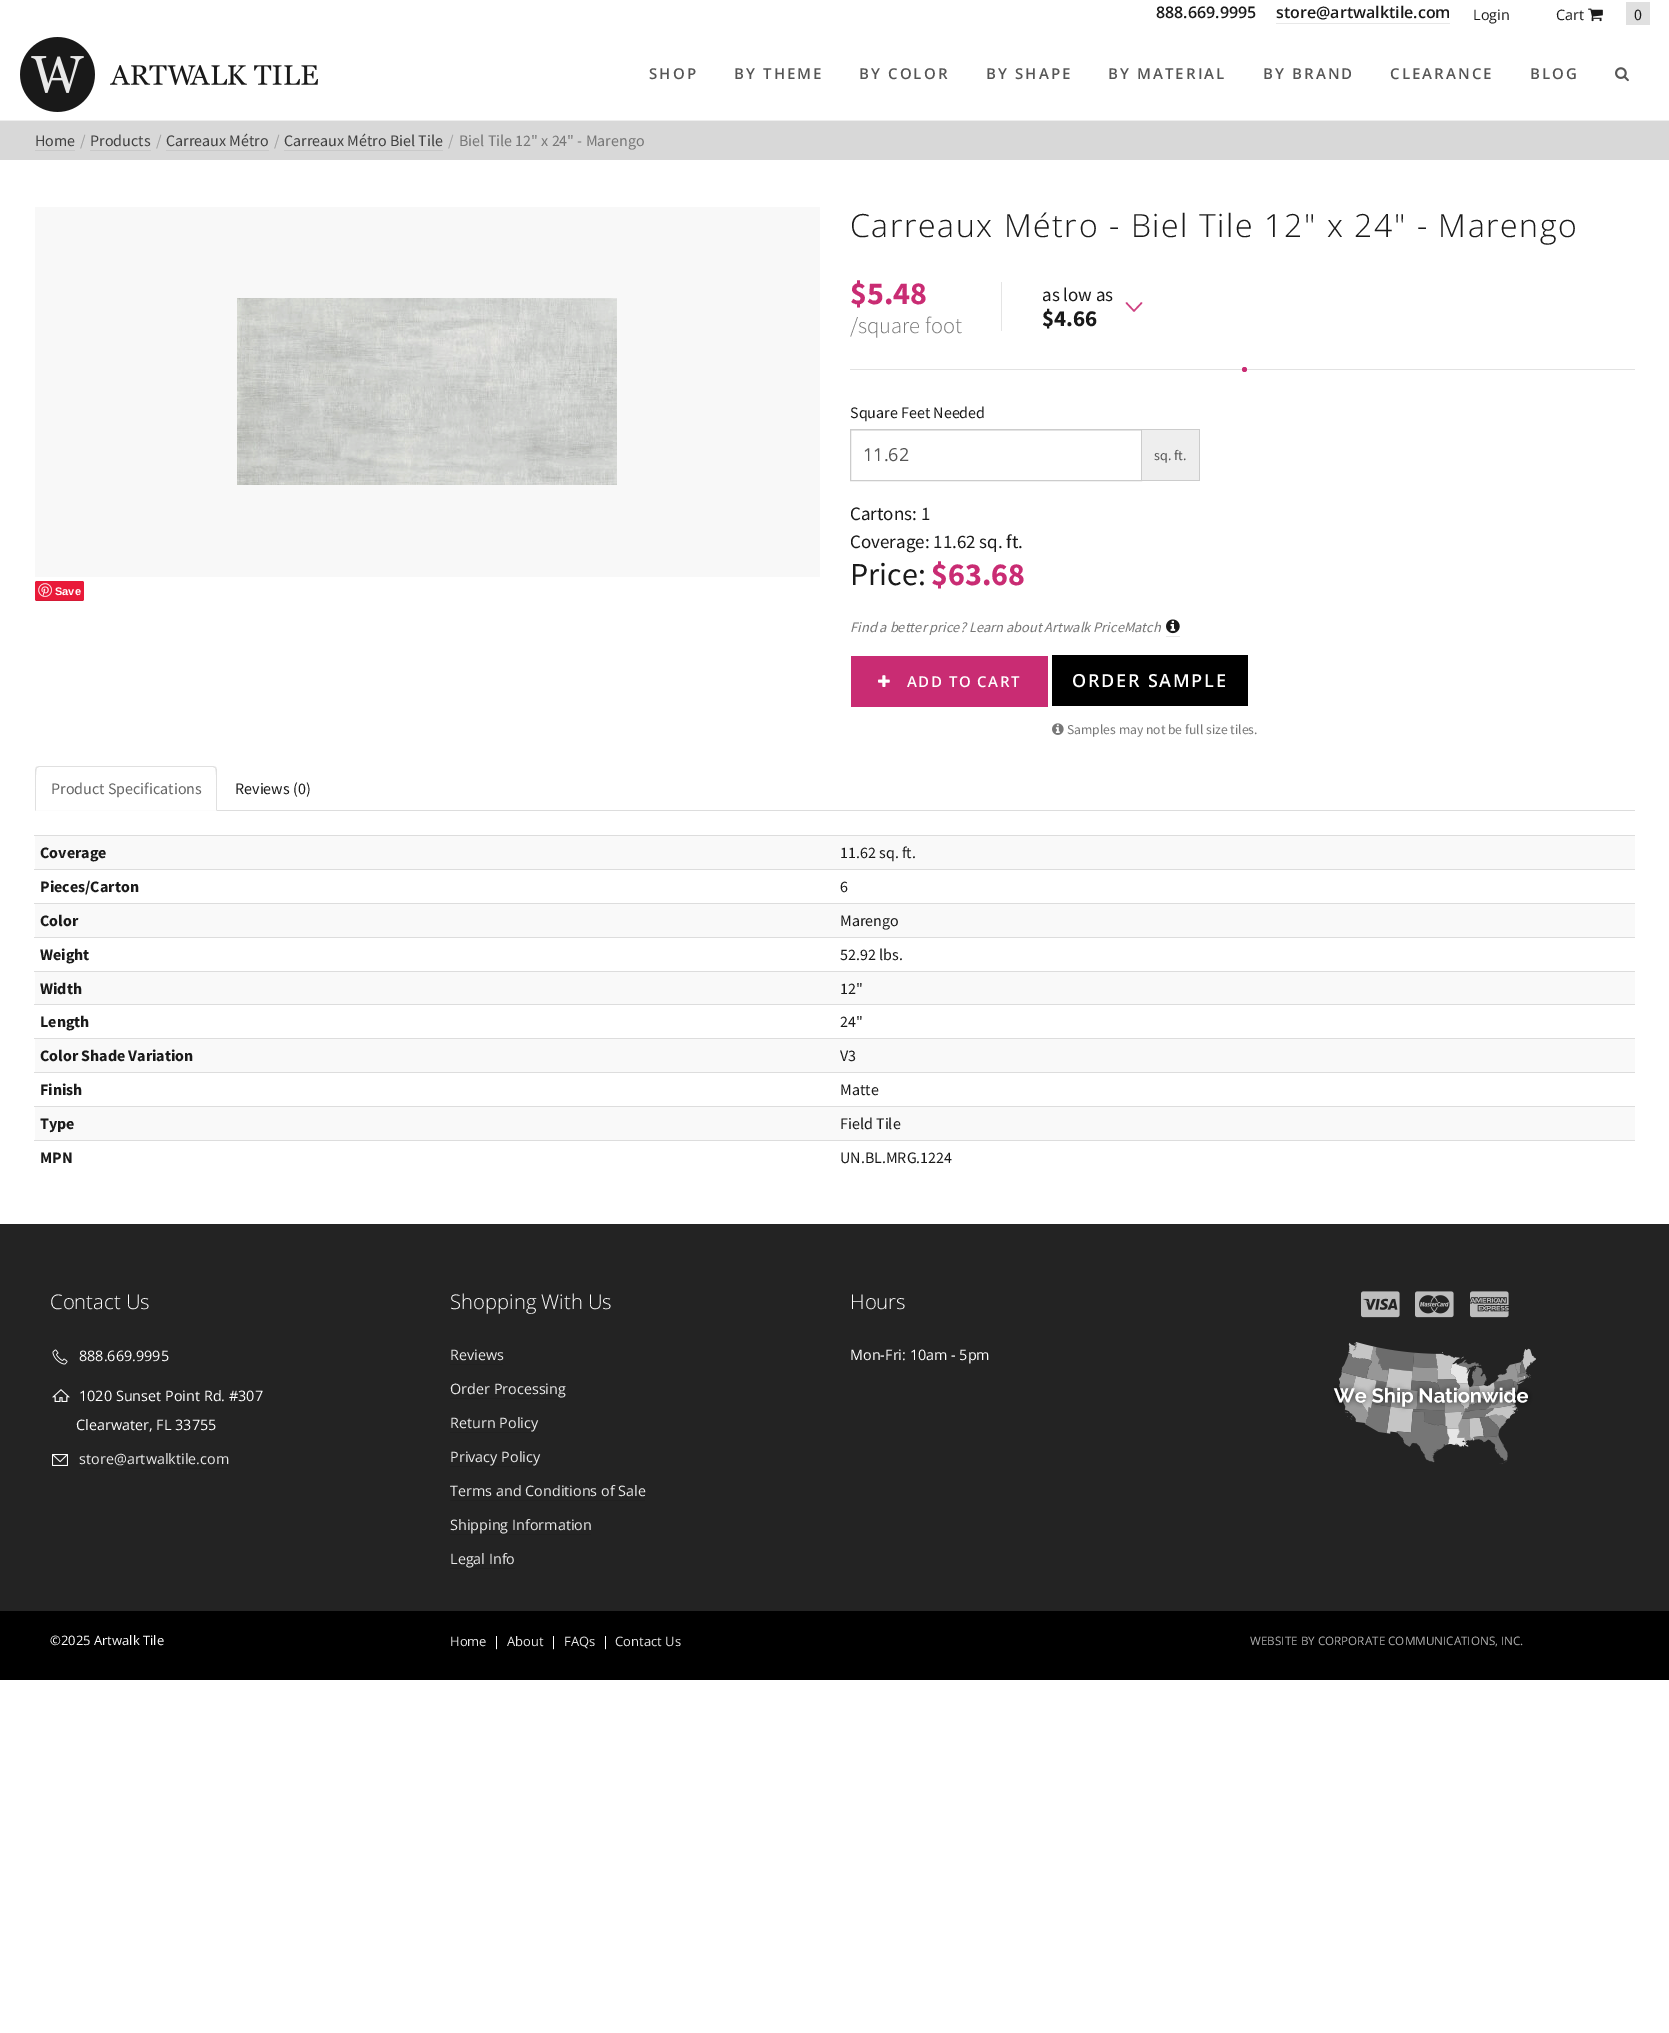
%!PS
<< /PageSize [1669 2033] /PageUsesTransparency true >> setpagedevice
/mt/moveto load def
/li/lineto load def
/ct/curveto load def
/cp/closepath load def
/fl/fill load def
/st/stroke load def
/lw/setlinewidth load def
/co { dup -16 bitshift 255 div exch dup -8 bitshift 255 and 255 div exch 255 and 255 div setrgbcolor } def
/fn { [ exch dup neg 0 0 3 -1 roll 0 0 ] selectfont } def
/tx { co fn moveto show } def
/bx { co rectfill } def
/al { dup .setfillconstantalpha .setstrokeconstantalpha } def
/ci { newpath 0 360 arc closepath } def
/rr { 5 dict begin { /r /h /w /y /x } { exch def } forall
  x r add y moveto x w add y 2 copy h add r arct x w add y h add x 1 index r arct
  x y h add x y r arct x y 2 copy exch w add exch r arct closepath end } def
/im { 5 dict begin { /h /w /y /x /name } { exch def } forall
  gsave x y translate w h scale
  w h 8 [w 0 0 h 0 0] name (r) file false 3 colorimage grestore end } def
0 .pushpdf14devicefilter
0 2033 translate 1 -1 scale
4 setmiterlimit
0 0 1669 2033 16#FFFFFF bx
1276 23 174 1 16#E8E8E8 bx
(media/1.raw) 1588 8 15 14 im
1626 2 24 23 16#E0E0E0 bx
0 120 1669 1 16#EEEEEE bx
(media/2.raw) 20 37 75 75 im
(media/3.raw) 110 65 208 20 im
(media/4.raw) 1615 67 14 15 im
0 121 1669 39 16#D8D8D8 bx
35 150 40 1 16#C9C9C9 bx
90 150 61 1 16#C9C9C9 bx
166 150 103 1 16#C9C9C9 bx
284 150 159 1 16#C9C9C9 bx
35 207 785 370 16#F8F8F8 bx
(media/5.raw) 237 298 380 187 im
16#E91A39 co
35 581 49 20 2 rr fl
(media/6.raw) 38 583 14 14 im
0.1 al
36 600 47 1 16#1A1A1A bx
1 al
1001 282 1 49 16#E5E5E5 bx
16#CE4181 co
1.5 lw
1 setlinecap
1 setlinejoin
1141.5 303 mt 1134 311 li 1126.5 303 li st
850 369 785 1 16#E2E2E2 bx
16#C92C73 co
1244.5 369.5 2.5 ci fl
851 430 290 1 16#ECECEC bx
16#CCCCCC co
1 lw
0 setlinecap
0 setlinejoin
850.5 429.5 291 51 rectstroke
1142 430 57 50 16#EEEEEE bx
1142 429 58 1 16#CCCCCC bx
1199 429 1 52 16#CCCCCC bx
1142 480 58 1 16#CCCCCC bx
1166 636 14 1 16#E8E8E8 bx
(media/7.raw) 1166 619 14 15 im
851 656 197 51 16#C92C73 bx
(media/8.raw) 878 675 12 12 im
1052 655 196 51 16#000000 bx
(media/9.raw) 1052 723 12 12 im
35 810 1600 1 16#DDDDDD bx
0.9 al
16#FFFFFF co
39 766 mt 213 766 li 215 766 217 768 217 770 ct 217 811 li 35 811 li 35 770 li 35 768 37 766 39 766 ct cp fl
1 al
16#E0E0E0 co
39 766 mt 36 767 li 37 768 li 39 767 li 213 767 li 215 768 li 216 767 li 213 766 li cp fl
0.9 al
16#DDDDDD co
217 811 mt 217 770 li 217 769 216 768 216 767 ct 215 768 li 217 770 216 805 216 810 ct cp fl
35 811 mt 36 810 li 36 805 35 770 37 768 ct 36 767 li 35 770 li cp fl
1 al
35 836 1600 33 16#F9F9F9 bx
34 835 1601 1 16#DDDDDD bx
34 869 1601 1 16#DDDDDD bx
35 904 1600 33 16#F9F9F9 bx
34 903 1601 1 16#DDDDDD bx
34 937 1601 1 16#DDDDDD bx
35 972 1600 32 16#F9F9F9 bx
34 971 1601 1 16#DDDDDD bx
34 1004 1601 1 16#DDDDDD bx
35 1039 1600 33 16#F9F9F9 bx
34 1038 1601 1 16#DDDDDD bx
34 1072 1601 1 16#DDDDDD bx
35 1107 1600 33 16#F9F9F9 bx
34 1106 1601 1 16#DDDDDD bx
34 1140 1601 1 16#DDDDDD bx
0 1224 1669 387 16#232323 bx
(media/10.raw) 52 1349 16 16 im
(media/11.raw) 52 1389 18 13 im
(media/12.raw) 52 1454 16 12 im
79 1468 149 1 16#202020 bx
450 1364 53 1 16#202020 bx
450 1398 115 1 16#202020 bx
450 1432 88 1 16#202020 bx
450 1466 89 1 16#202020 bx
450 1500 195 1 16#202020 bx
450 1534 141 1 16#202020 bx
450 1568 65 1 16#202020 bx
(media/13.raw) 1361 1291 39 27 im
(media/14.raw) 1415 1291 39 27 im
(media/15.raw) 1470 1291 39 27 im
(media/16.raw) 1333 1342 203 122 im
0 1611 1669 69 16#000000 bx
(888.669.9995) 1156 18 /OpenSans-SemiBold 16 16#1A1A1A tx
(store@artwalktile.com) 1276 18 /OpenSans-SemiBold 16 16#1A1A1A tx
(Login) 1473 20 /OpenSans-Regular 14.4 16#1A1A1A tx
(Cart) 1556 20 /OpenSans-Regular 14.4 16#1A1A1A tx
(0) 1634 20 /SourceSansPro-Regular 16 16#1A1A1A tx
/OpenSans-SemiBold 15 fn
16#555555 co
649 79 mt 2.1 0 (SHOP) ashow
734 79 mt 2.1 0 (BY THEME) ashow
859 79 mt 2.1 0 (BY COLOR) ashow
986 79 mt 2.1 0 (BY SHAPE) ashow
1108 79 mt 2.1 0 (BY MATERIAL) ashow
1263 79 mt 2.1 0 (BY BRAND) ashow
1390 79 mt 2.1 0 (CLEARANCE) ashow
1530 79 mt 2.1 0 (BLOG) ashow
(Home) 35 146 /SourceSansPro-Regular 16 16#414141 tx
(/) 80 146 /SourceSansPro-Regular 16 16#9E9E9E tx
(Products) 90 146 /SourceSansPro-Regular 16 16#414141 tx
(/) 156 146 /SourceSansPro-Regular 16 16#9E9E9E tx
(Carreaux Métro) 166 146 /SourceSansPro-Regular 16 16#414141 tx
(/) 274 146 /SourceSansPro-Regular 16 16#9E9E9E tx
(Carreaux Métro Biel Tile) 284 146 /SourceSansPro-Regular 16 16#414141 tx
(/) 448 146 /SourceSansPro-Regular 16 16#9E9E9E tx
(Biel Tile 12" x 24" - Marengo) 459 146 /SourceSansPro-Regular 16 16#777777 tx
(Save) 55 595 /LiberationSans-Bold 11 16#FFFFFF tx
/OpenSans-Light 32 fn
16#1A1A1A co
850 237 mt 1.6 0 (Carreaux Métro - Biel Tile 12" x 24" - Marengo) ashow
($5.48) 850 304 /SourceSansPro-Bold 32 16#C92C73 tx
(/square foot) 850 333 /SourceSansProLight-Light 22.5 16#777777 tx
(as low as) 1042 301 /SourceSansPro-Regular 19 16#1A1A1A tx
($4.66) 1042 326 /SourceSansPro-Bold 23 16#1A1A1A tx
(Square Feet Needed) 850 418 /SourceSansPro-Regular 16 16#1A1A1A tx
(11.62) 863 461 /OpenSans-Regular 18 16#555555 tx
(sq. ft.) 1154 460 /SourceSansPro-Regular 14 16#555555 tx
(Cartons: 1) 850 520 /SourceSansPro-Regular 19 16#1A1A1A tx
(Coverage: 11.62 sq. ft.) 850 548 /SourceSansPro-Regular 19 16#1A1A1A tx
(Price:) 850 585 /SourceSansPro-Regular 32 16#1A1A1A tx
($63.68) 931 585 /SourceSansPro-Bold 32 16#C92C73 tx
(Find a better price? Learn about Artwalk PriceMatch) 850 632 /SourceSansPro-Italic 14.4 16#777777 tx
/OpenSans-SemiBold 15 fn
16#FFFFFF co
907 687 mt 1.5 0 (ADD TO CART) ashow
/OpenSans-SemiBold 18 fn
1072 687 mt 1.75 0 (ORDER SAMPLE) ashow
(Samples may not be full size tiles.) 1067 734 /SourceSansPro-Regular 13.6 16#777777 tx
(Product Specifications) 51 794 /SourceSansPro-Regular 16 16#666666 tx
(Reviews \(0\)) 235 794 /SourceSansPro-Regular 16 16#1A1A1A tx
(Coverage) 40 858 /SourceSansPro-Bold 16 16#1A1A1A tx
(11.62 sq. ft.) 840 858 /SourceSansPro-Regular 16 16#1A1A1A tx
(Pieces/Carton) 40 892 /SourceSansPro-Bold 16 16#1A1A1A tx
(6) 840 892 /SourceSansPro-Regular 16 16#1A1A1A tx
(Color) 40 926 /SourceSansPro-Bold 16 16#1A1A1A tx
(Marengo) 840 926 /SourceSansPro-Regular 16 16#1A1A1A tx
(Weight) 40 960 /SourceSansPro-Bold 16 16#1A1A1A tx
(52.92 lbs.) 840 960 /SourceSansPro-Regular 16 16#1A1A1A tx
(Width) 40 994 /SourceSansPro-Bold 16 16#1A1A1A tx
(12") 840 994 /SourceSansPro-Regular 16 16#1A1A1A tx
(Length) 40 1027 /SourceSansPro-Bold 16 16#1A1A1A tx
(24") 840 1027 /SourceSansPro-Regular 16 16#1A1A1A tx
(Color Shade Variation) 40 1061 /SourceSansPro-Bold 16 16#1A1A1A tx
(V3) 840 1061 /SourceSansPro-Regular 16 16#1A1A1A tx
(Finish) 40 1095 /SourceSansPro-Bold 16 16#1A1A1A tx
(Matte) 840 1095 /SourceSansPro-Regular 16 16#1A1A1A tx
(Type) 40 1129 /SourceSansPro-Bold 16 16#1A1A1A tx
(Field Tile) 840 1129 /SourceSansPro-Regular 16 16#1A1A1A tx
(MPN) 40 1163 /SourceSansPro-Bold 16 16#1A1A1A tx
(UN.BL.MRG.1224) 840 1163 /SourceSansPro-Regular 16 16#1A1A1A tx
(Contact Us) 50 1309 /OpenSans-Light 20.25 16#FFFFFF tx
(888.669.9995) 79 1361 /OpenSans-Regular 14.4 16#FFFFFF tx
(1020 Sunset Point Rd. #307) 79 1401 /OpenSans-Regular 14.4 16#FFFFFF tx
(Clearwater, FL 33755) 76 1430 /OpenSans-Regular 14.4 16#FFFFFF tx
(store@artwalktile.com) 79 1464 /OpenSans-Regular 14.4 16#E9E9E9 tx
(Shopping With Us) 450 1309 /OpenSans-Light 20.25 16#FFFFFF tx
(Reviews) 450 1360 /OpenSans-Regular 14.4 16#E9E9E9 tx
(Order Processing) 450 1394 /OpenSans-Regular 14.4 16#E9E9E9 tx
(Return Policy) 450 1428 /OpenSans-Regular 14.4 16#E9E9E9 tx
(Privacy Policy) 450 1462 /OpenSans-Regular 14.4 16#E9E9E9 tx
(Terms and Conditions of Sale) 450 1496 /OpenSans-Regular 14.4 16#E9E9E9 tx
(Shipping Information) 450 1530 /OpenSans-Regular 14.4 16#E9E9E9 tx
(Legal Info) 450 1564 /OpenSans-Regular 14.4 16#E9E9E9 tx
(Hours) 850 1309 /OpenSans-Light 20.25 16#FFFFFF tx
(Mon-Fri: 10am - 5pm) 850 1360 /OpenSans-Regular 14.4 16#FFFFFF tx
(©2025 Artwalk Tile) 50 1645 /OpenSans-Regular 13 16#FFFFFF tx
(Home) 450 1646 /OpenSans-Regular 13 16#E9E9E9 tx
(|) 493 1646 /OpenSans-Regular 13 16#FFFFFF tx
(About) 507 1646 /OpenSans-Regular 13 16#E9E9E9 tx
(|) 550 1646 /OpenSans-Regular 13 16#FFFFFF tx
(FAQs) 564 1646 /OpenSans-Regular 13 16#E9E9E9 tx
(|) 602 1646 /OpenSans-Regular 13 16#FFFFFF tx
(Contact Us) 615 1646 /OpenSans-Regular 13 16#E9E9E9 tx
(WEBSITE BY CORPORATE COMMUNICATIONS, INC.) 1250 1645 /OpenSans-Regular 11.7 16#B3B3B3 tx
.poppdf14devicefilter showpage
